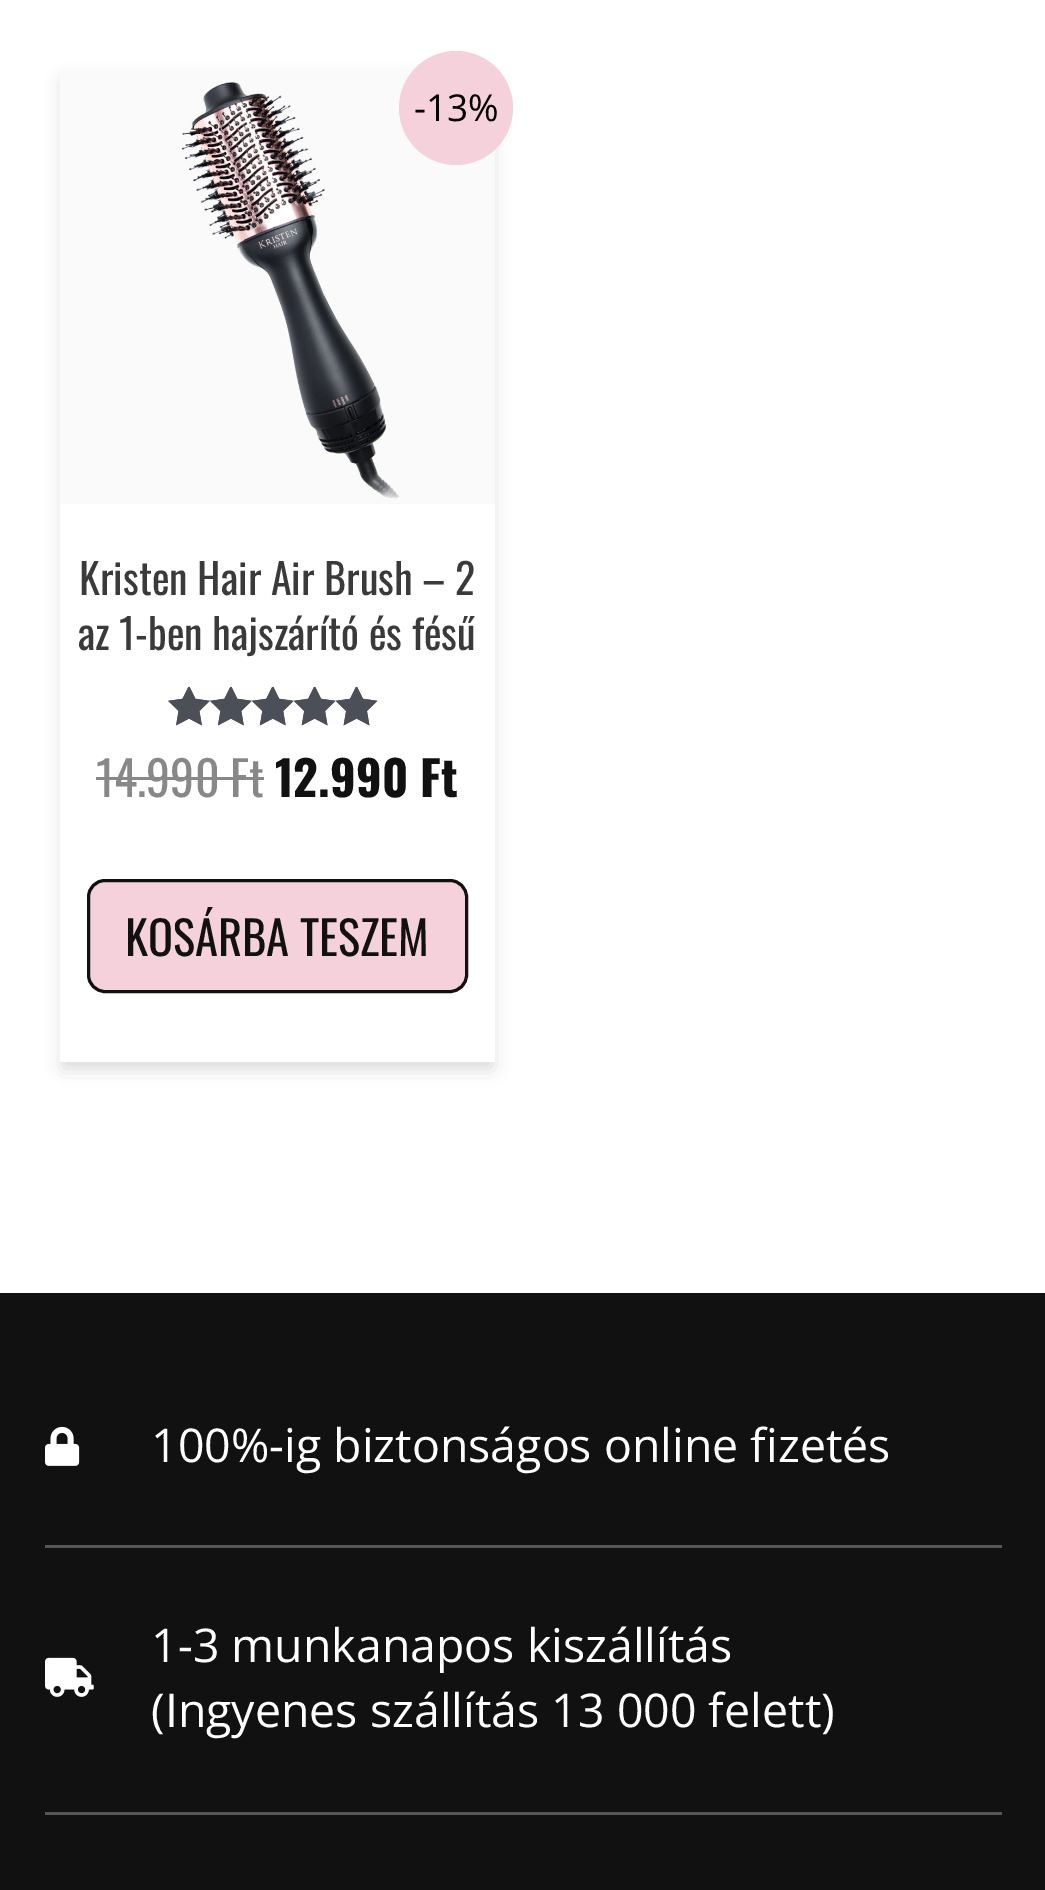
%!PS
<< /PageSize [1045 1890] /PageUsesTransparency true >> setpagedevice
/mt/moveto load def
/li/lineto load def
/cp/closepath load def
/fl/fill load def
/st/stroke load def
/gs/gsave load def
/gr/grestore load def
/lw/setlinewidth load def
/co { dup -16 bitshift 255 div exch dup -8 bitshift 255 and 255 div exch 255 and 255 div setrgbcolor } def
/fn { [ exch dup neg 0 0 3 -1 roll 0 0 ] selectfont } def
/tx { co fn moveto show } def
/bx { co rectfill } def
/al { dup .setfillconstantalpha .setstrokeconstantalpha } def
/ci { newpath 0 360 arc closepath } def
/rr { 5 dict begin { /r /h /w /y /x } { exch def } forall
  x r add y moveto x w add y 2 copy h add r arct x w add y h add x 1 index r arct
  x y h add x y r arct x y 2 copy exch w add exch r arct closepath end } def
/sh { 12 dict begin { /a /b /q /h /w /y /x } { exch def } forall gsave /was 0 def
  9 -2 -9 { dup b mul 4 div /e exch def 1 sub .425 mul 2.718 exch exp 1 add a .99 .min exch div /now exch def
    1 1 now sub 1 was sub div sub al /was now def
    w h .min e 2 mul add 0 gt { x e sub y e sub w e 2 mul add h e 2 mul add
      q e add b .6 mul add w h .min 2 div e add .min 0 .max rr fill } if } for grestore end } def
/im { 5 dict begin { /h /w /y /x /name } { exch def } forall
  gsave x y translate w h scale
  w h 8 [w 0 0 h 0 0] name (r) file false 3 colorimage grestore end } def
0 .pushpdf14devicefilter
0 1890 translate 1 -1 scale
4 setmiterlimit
0 0 1045 1890 16#FFFFFF bx
gs
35 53 mt 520 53 li 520 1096 li 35 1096 li cp 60 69 mt 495 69 li 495 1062 li 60 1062 li cp eoclip newpath
16#000000 co
63 81 429 987 0 9 .15 sh
gr
(media/1.raw) 60 69 435 435 im
16#F5D1DB co
456 108 57 ci fl
(media/2.raw) 168 687 210 39 im
(media/3.raw) 168 687 210 39 im
96 777 168 3 16#888888 bx
16#F5D1DB co
88.5 880.5 378 111 16.5 rr gs fl gr
16#111111 co
3 lw
st
0 1293 1045 597 16#111111 bx
(media/4.raw) 45 1426 35 40 im
45 1545 957 3 16#565656 bx
(media/5.raw) 45 1657 49 40 im
45 1812 957 3 16#565656 bx
(-13%) 414 121 /OpenSans-Regular 37 16#000000 tx
(Kristen Hair Air Brush – 2) 79 595 /Oswald-Regular 42 16#3A3A3A tx
(az 1-ben hajszárító és fésű) 78 650 /Oswald-Regular 42 16#3A3A3A tx
(14.990 Ft) 96 797 /Oswald-Regular 48 16#888888 tx
(12.990 Ft) 275 797 /Oswald-Bold 48 16#111111 tx
(KOSÁRBA TESZEM) 125 956 /Oswald-Regular 46.5 16#111111 tx
(100%-ig biztonságos online fizetés) 151 1462 /OpenSans-Regular 46.5 16#FFFFFF tx
(1-3 munkanapos kiszállítás) 151 1662 /OpenSans-Regular 46.5 16#FFFFFF tx
(\(Ingyenes szállítás 13 000 felett\)) 151 1727 /OpenSans-Regular 46.5 16#FFFFFF tx
.poppdf14devicefilter showpage
